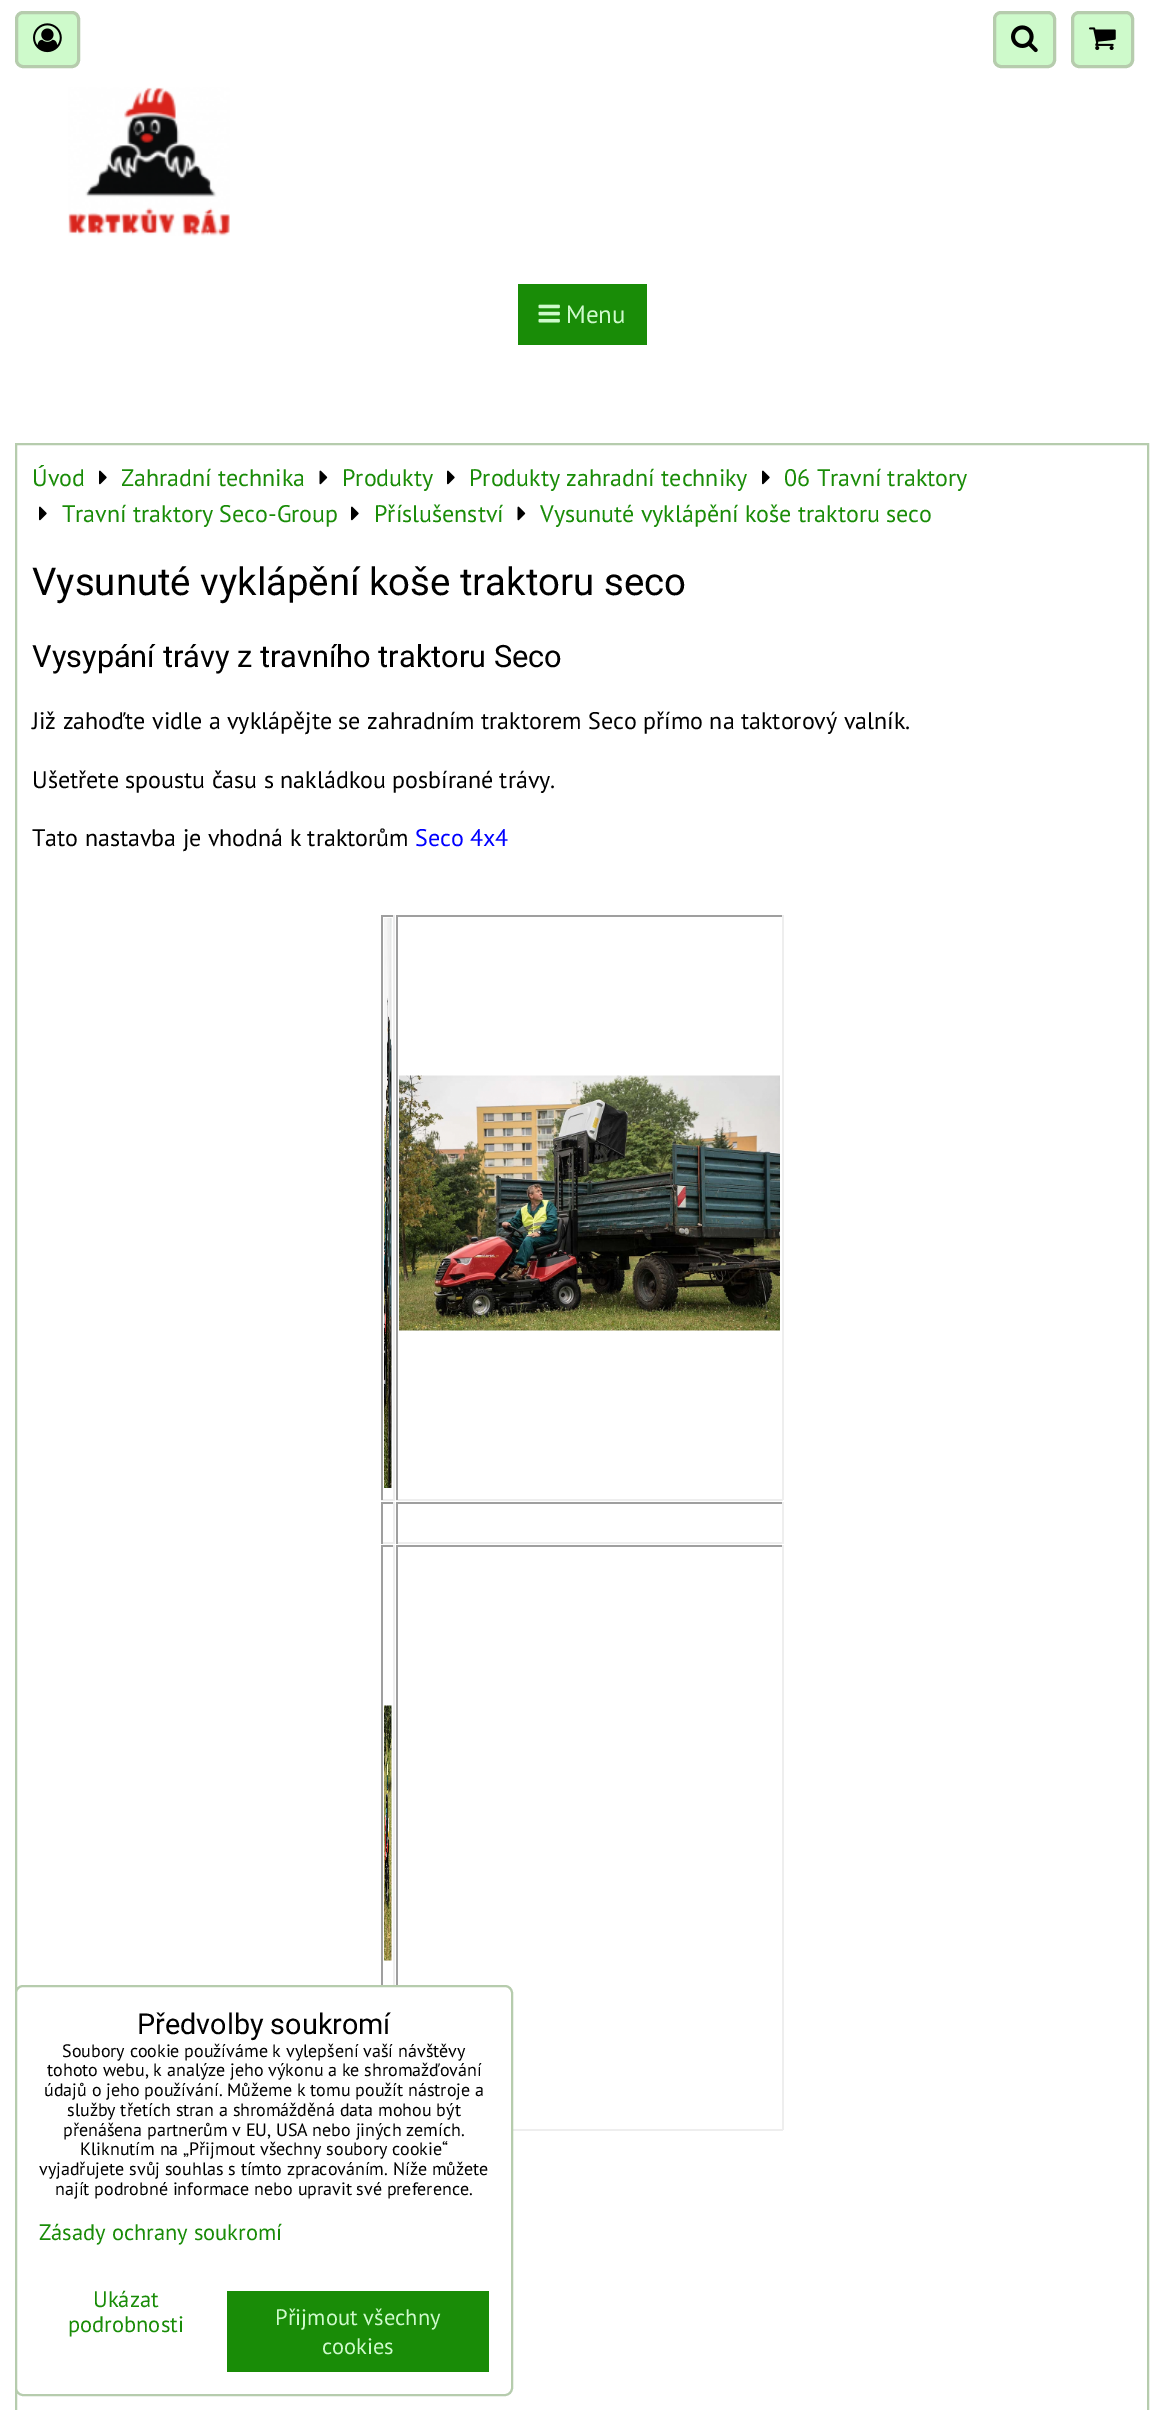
%!PS
<< /PageSize [1164 2410] >> setpagedevice
/fl/fill load def
/st/stroke load def
/gs/gsave load def
/gr/grestore load def
/lw/setlinewidth load def
/co { dup -16 bitshift 255 div exch dup -8 bitshift 255 and 255 div exch 255 and 255 div setrgbcolor } def
/fn { [ exch dup neg 0 0 3 -1 roll 0 0 ] selectfont } def
/tx { co fn moveto show } def
/bx { co rectfill } def
/rr { 5 dict begin { /r /h /w /y /x } { exch def } forall
  x r add y moveto x w add y 2 copy h add r arct x w add y h add x 1 index r arct
  x y h add x y r arct x y 2 copy exch w add exch r arct closepath end } def
/im { 5 dict begin { /h /w /y /x /name } { exch def } forall
  gsave x y translate w h scale
  w h 8 [w 0 0 h 0 0] name (r) file false 3 colorimage grestore end } def
0 2410 translate 1 -1 scale
4 setmiterlimit
0 0 1164 2410 16#FFFFFF bx
16#CEFACB co
16.5 12.5 62 54 6.5 rr gs fl gr
16#B6CCAD co
3 lw
st
(media/1.raw) 33 23 29 30 im
16#CEFACB co
994.5 12.5 60 54 6.5 rr gs fl gr
16#B6CCAD co
st
(media/2.raw) 1011 25 27 28 im
16#CEFACB co
1072.5 12.5 60 54 6.5 rr gs fl gr
16#B6CCAD co
st
(media/3.raw) 1089 27 27 23 im
(media/4.raw) 68 87 162 149 im
518 284 129 61 16#198C07 bx
(media/5.raw) 538 304 22 19 im
16#B6CCAD co
2 lw
16 444 1132 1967 rectstroke
(media/6.raw) 99 470 8 15 im
(media/7.raw) 319 470 9 15 im
(media/6.raw) 447 470 8 15 im
(media/6.raw) 762 470 8 15 im
(media/6.raw) 39 506 8 15 im
(media/6.raw) 351 506 8 15 im
(media/7.raw) 517 506 9 15 im
381 915 14 2 16#9F9F9F bx
393 915 2 585 16#EEEEEE bx
381 1499 14 2 16#EEEEEE bx
381 915 2 585 16#9F9F9F bx
(media/8.raw) 384 918 8 570 im
396 915 387 2 16#9F9F9F bx
782 915 2 585 16#EEEEEE bx
396 1499 387 2 16#EEEEEE bx
396 915 2 585 16#9F9F9F bx
(media/9.raw) 399 1075 381 256 im
381 1502 14 2 16#9F9F9F bx
393 1502 2 42 16#EEEEEE bx
381 1542 14 2 16#EEEEEE bx
381 1502 2 42 16#9F9F9F bx
396 1502 387 2 16#9F9F9F bx
782 1502 2 42 16#EEEEEE bx
396 1542 387 2 16#EEEEEE bx
396 1502 2 42 16#9F9F9F bx
381 1545 14 2 16#9F9F9F bx
393 1545 2 440 16#EEEEEE bx
381 1545 2 440 16#9F9F9F bx
(media/10.raw) 384 1705 8 256 im
396 1545 387 2 16#9F9F9F bx
782 1545 2 585 16#EEEEEE bx
513 2129 270 2 16#EEEEEE bx
396 1545 2 440 16#9F9F9F bx
16#FFFFFF co
16 1986 496 409 7 rr gs fl gr
16#B6CCAD co
st
227 2291 262 81 16#198C07 bx
(Menu) 566 323 /PTSans-Regular 25 16#CEFACB tx
(Úvod) 32 486 /PTSans-Regular 24 16#198C07 tx
(Zahradní technika) 121 486 /PTSans-Regular 24 16#198C07 tx
(Produkty) 342 486 /PTSans-Regular 24 16#198C07 tx
(Produkty zahradní techniky) 469 486 /PTSans-Regular 24 16#198C07 tx
(06 Travní traktory) 784 486 /PTSans-Regular 24 16#198C07 tx
(Travní traktory Seco-Group) 62 522 /PTSans-Regular 24 16#198C07 tx
(Příslušenství) 374 522 /PTSans-Regular 24 16#198C07 tx
(Vysunuté vyklápění koše traktoru seco) 540 522 /PTSans-Regular 24 16#198C07 tx
(Vysunuté vyklápění koše traktoru seco) 32 595 /Roboto-Regular 38.4 16#000000 tx
(Vysypání trávy z travního traktoru Seco) 32 667 /Roboto-Regular 30.75 16#000000 tx
(Již zahoďte vidle a vyklápějte se zahradním traktorem Seco přímo na taktorový valník.) 32 729 /PTSans-Regular 24 16#000000 tx
(Ušetřete spoustu času s nakládkou posbírané trávy.) 32 788 /PTSans-Regular 24 16#000000 tx
(Tato nastavba je vhodná k traktorům) 32 846 /PTSans-Regular 24 16#000000 tx
(Seco 4x4) 415 846 /PTSans-Regular 24 16#0000FF tx
(Předvolby soukromí) 137 2034 /Roboto-Regular 28.75 16#000000 tx
(Soubory cookie používáme k vylepšení vaší návštěvy) 62 2057 /PTSans-Regular 18 16#000000 tx
(tohoto webu, k analýze jeho výkonu a ke shromažďování) 47 2076 /PTSans-Regular 18 16#000000 tx
(údajů o jeho používání. Můžeme k tomu použít nástroje a) 44 2096 /PTSans-Regular 18 16#000000 tx
(služby třetích stran a shromážděná data mohou být) 67 2116 /PTSans-Regular 18 16#000000 tx
(přenášena partnerům v EU, USA nebo jiných zemích.) 63 2136 /PTSans-Regular 18 16#000000 tx
(Kliknutím na „Přijmout všechny soubory cookie“) 80 2155 /PTSans-Regular 18 16#000000 tx
(vyjadřujete svůj souhlas s tímto zpracováním. Níže můžete) 39 2175 /PTSans-Regular 18 16#000000 tx
(najít podrobné informace nebo upravit své preference.) 55 2195 /PTSans-Regular 18 16#000000 tx
(Zásady ochrany soukromí) 39 2240 /PTSans-Regular 22.5 16#198C07 tx
(Ukázat) 93 2307 /PTSans-Regular 22.5 16#198C07 tx
(podrobnosti) 68 2332 /PTSans-Regular 22.5 16#198C07 tx
(Přijmout všechny) 275 2325 /PTSans-Regular 22.5 16#CEFACB tx
(cookies) 322 2354 /PTSans-Regular 22.5 16#CEFACB tx
showpage
